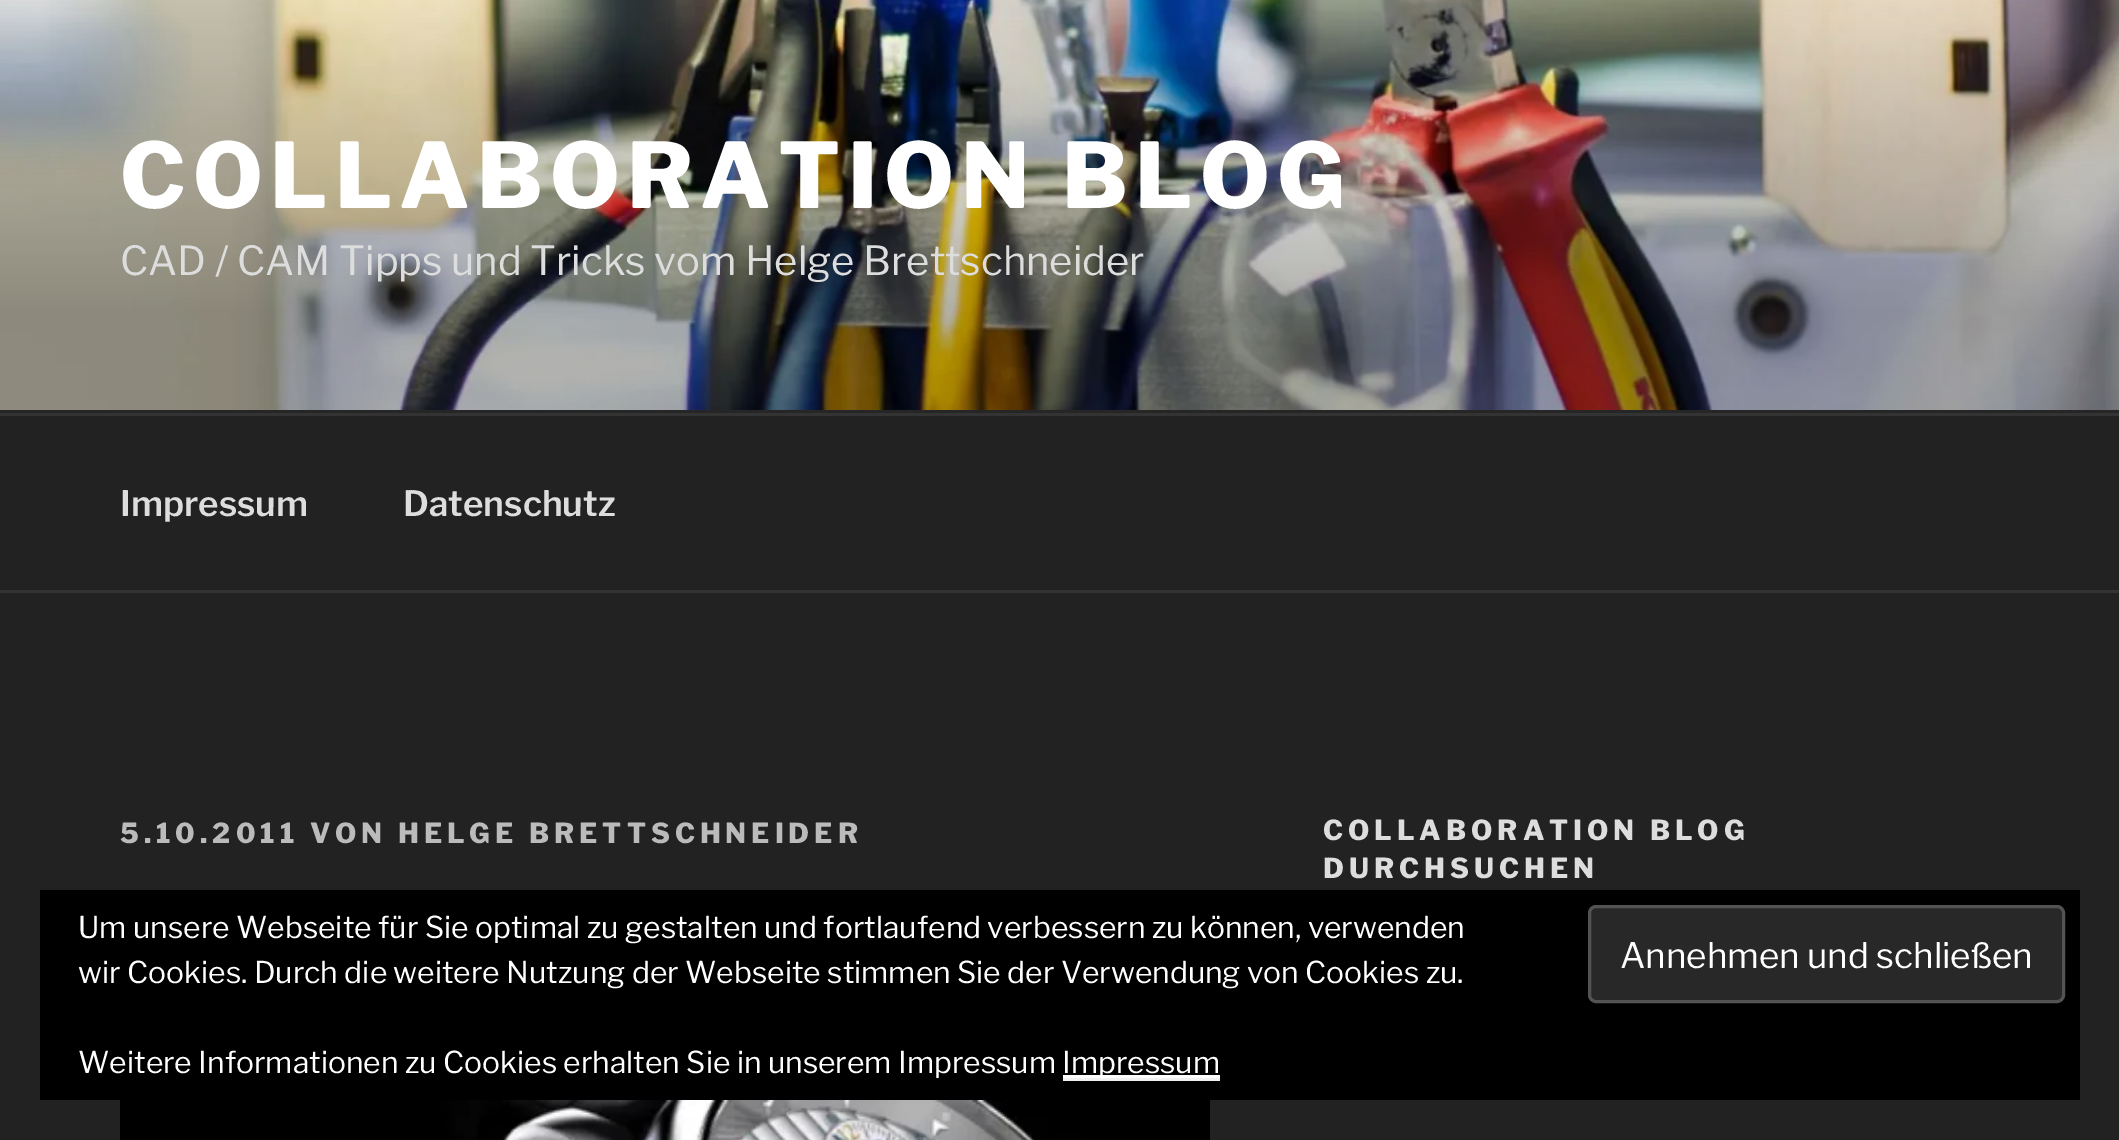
%!PS
<< /PageSize [2119 1140] >> setpagedevice
/mt/moveto load def
/fl/fill load def
/st/stroke load def
/gs/gsave load def
/gr/grestore load def
/lw/setlinewidth load def
/co { dup -16 bitshift 255 div exch dup -8 bitshift 255 and 255 div exch 255 and 255 div setrgbcolor } def
/fn { [ exch dup neg 0 0 3 -1 roll 0 0 ] selectfont } def
/tx { co fn moveto show } def
/bx { co rectfill } def
/rr { 5 dict begin { /r /h /w /y /x } { exch def } forall
  x r add y moveto x w add y 2 copy h add r arct x w add y h add x 1 index r arct
  x y h add x y r arct x y 2 copy exch w add exch r arct closepath end } def
/im { 5 dict begin { /h /w /y /x /name } { exch def } forall
  gsave x y translate w h scale
  w h 8 [w 0 0 h 0 0] name (r) file false 3 colorimage grestore end } def
0 1140 translate 1 -1 scale
4 setmiterlimit
0 0 2119 1140 16#222222 bx
0 410 2119 3 16#262626 bx
(media/1.raw) 0 0 2119 410 im
0 413 2119 3 16#333333 bx
0 590 2119 3 16#333333 bx
(media/2.raw) 120 1100 1090 40 im
40 890 2040 210 16#000000 bx
16#282828 co
1589.5 906.5 474 95 6.5 rr gs fl gr
16#535353 co
3 lw
st
1063 1078 157 3 16#F0F0F0 bx
1063 1075 157 3 16#FFFFFF bx
/LibreFranklin-Thin 90 fn
120 208 mt 7.25 0 (COLLABORATION BLOG) ashow
(CAD / CAM Tipps und Tricks vom Helge Brettschneider) 120 275 /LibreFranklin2-Thin 40 16#DDDDDD tx
(Impressum) 120 516 /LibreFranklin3-Thin 35 16#DDDDDD tx
(Datenschutz) 403 516 /LibreFranklin3-Thin 35 16#DDDDDD tx
/LibreFranklin-Thin 27.5 fn
16#BBBBBB co
120 843 mt 5 0 (5.10.2011 VON HELGE BRETTSCHNEIDER) ashow
16#DDDDDD co
1323 840 mt 5 0 (COLLABORATION BLOG) ashow
1323 878 mt 5 0 (DURCHSUCHEN) ashow
(Um unsere Webseite für Sie optimal zu gestalten und fortlaufend verbessern zu können, verwenden) 78 938 /LibreFranklin2-Thin 30 16#FFFFFF tx
(Annehmen und schließen) 1620 968 /LibreFranklin2-Thin 35 16#FFFFFF tx
(wir Cookies. Durch die weitere Nutzung der Webseite stimmen Sie der Verwendung von Cookies zu.) 78 983 /LibreFranklin2-Thin 30 16#FFFFFF tx
(Weitere Informationen zu Cookies erhalten Sie in unserem Impressum) 78 1073 /LibreFranklin2-Thin 30 16#FFFFFF tx
(Impressum) 1062 1073 /LibreFranklin2-Thin 30 16#FFFFFF tx
showpage
